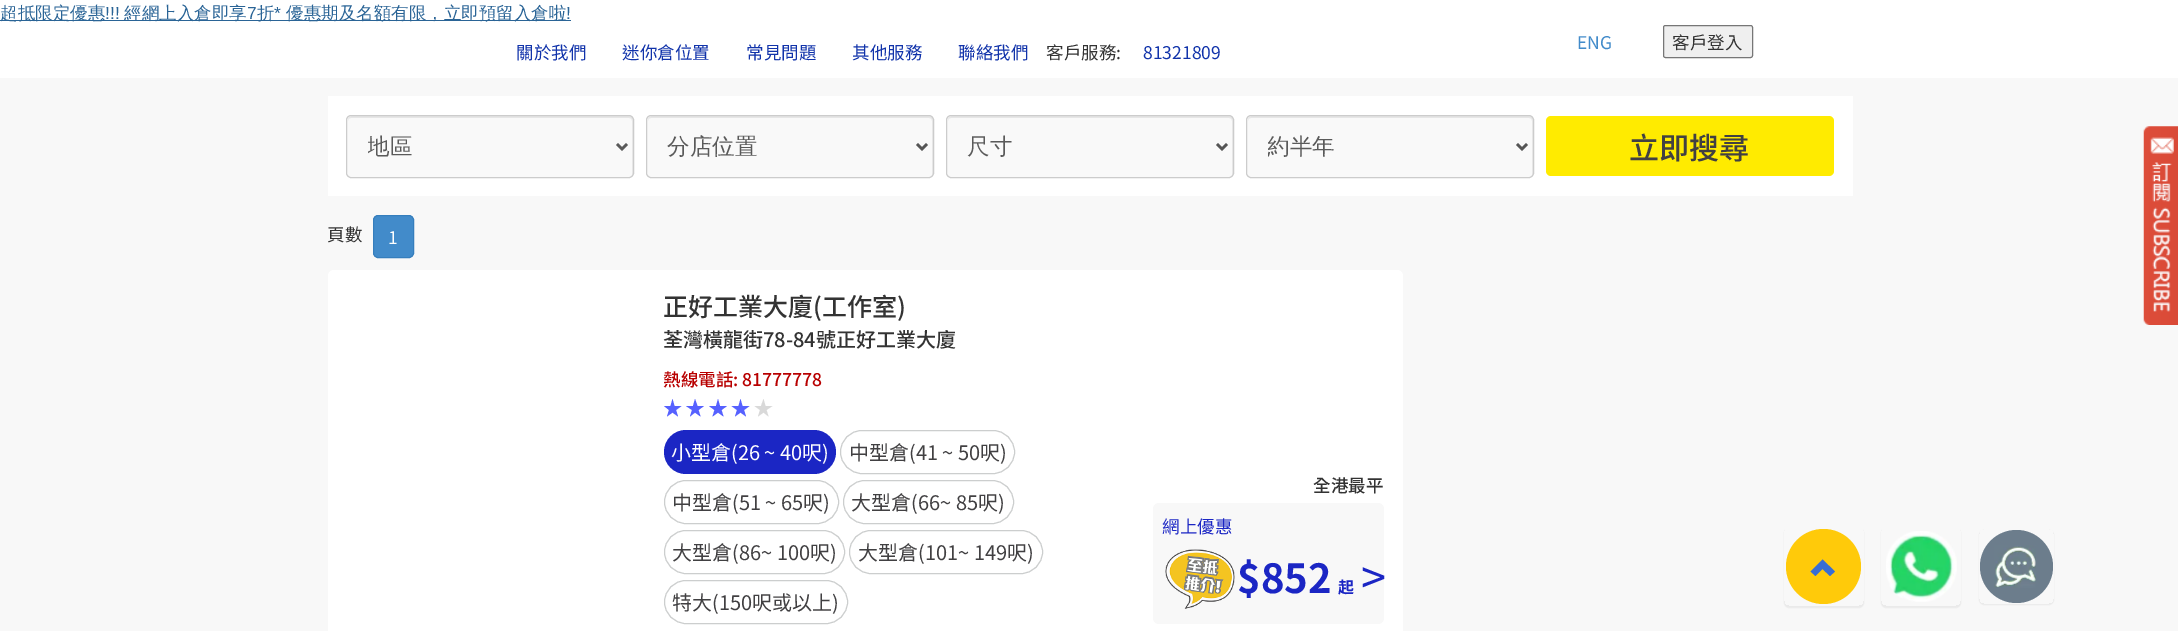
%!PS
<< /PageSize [2178 631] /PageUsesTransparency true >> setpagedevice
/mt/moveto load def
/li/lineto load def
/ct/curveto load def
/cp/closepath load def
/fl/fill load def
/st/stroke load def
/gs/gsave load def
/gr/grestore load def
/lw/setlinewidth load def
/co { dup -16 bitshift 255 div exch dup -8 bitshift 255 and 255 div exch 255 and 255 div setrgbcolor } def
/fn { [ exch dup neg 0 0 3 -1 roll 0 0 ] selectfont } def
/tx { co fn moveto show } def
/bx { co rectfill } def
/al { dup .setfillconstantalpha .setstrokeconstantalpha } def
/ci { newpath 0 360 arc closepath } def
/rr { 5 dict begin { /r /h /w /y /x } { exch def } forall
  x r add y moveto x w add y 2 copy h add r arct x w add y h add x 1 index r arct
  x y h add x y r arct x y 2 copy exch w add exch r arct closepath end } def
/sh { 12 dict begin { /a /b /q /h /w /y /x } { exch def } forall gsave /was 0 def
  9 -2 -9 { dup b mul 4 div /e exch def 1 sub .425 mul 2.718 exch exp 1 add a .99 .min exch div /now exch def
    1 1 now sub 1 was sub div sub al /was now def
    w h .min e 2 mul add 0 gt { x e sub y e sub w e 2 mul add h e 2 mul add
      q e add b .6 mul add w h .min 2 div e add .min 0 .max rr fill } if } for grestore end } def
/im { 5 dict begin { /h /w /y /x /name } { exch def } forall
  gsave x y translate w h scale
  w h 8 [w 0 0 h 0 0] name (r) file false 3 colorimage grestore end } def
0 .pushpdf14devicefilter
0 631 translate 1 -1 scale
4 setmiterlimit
0 0 2178 631 16#FFFFFF bx
0 20 571 1 16#2A6496 bx
16#EFEFEF co
1663.5 25.5 89 32 2 rr gs fl gr
16#767676 co
st
0 78 2178 553 16#F8F8F8 bx
328 96 1525 100 16#FFFFFF bx
16#F9F9F9 co
346 115 288 63 5 rr fl
16#E6E6E6 co
351 118 mt 629 118 li 631 118 632 119 632 121 ct 632 175 li 633 174 633 173 633 172 ct 633 120 li 633 118 631 116 629 116 ct 352 116 li 350 116 348 118 348 120 ct 348 121 li 348 119 349 118 351 118 ct cp fl
16#CCCCCC co
346.5 115.5 287 62 4.5 rr st
16#5A5A5A co
2.5 lw
617 144 mt 622 149 li 627 144 li st
16#F9F9F9 co
646 115 288 63 5 rr fl
16#E6E6E6 co
651 118 mt 929 118 li 931 118 932 119 932 121 ct 932 175 li 933 174 933 173 933 172 ct 933 120 li 933 118 931 116 929 116 ct 652 116 li 650 116 648 118 648 120 ct 648 121 li 648 119 649 118 651 118 ct cp fl
16#CCCCCC co
1 lw
646.5 115.5 287 62 4.5 rr st
16#555555 co
2.5 lw
917 144 mt 922 149 li 927 144 li st
16#F9F9F9 co
946 115 288 63 5 rr fl
16#E6E6E6 co
951 118 mt 1229 118 li 1231 118 1232 119 1232 121 ct 1232 175 li 1233 174 1233 173 1233 172 ct 1233 120 li 1233 118 1231 116 1229 116 ct 952 116 li 950 116 948 118 948 120 ct 948 121 li 948 119 949 118 951 118 ct cp fl
16#CCCCCC co
1 lw
946.5 115.5 287 62 4.5 rr st
16#555555 co
2.5 lw
1217 144 mt 1222 149 li 1227 144 li st
16#F9F9F9 co
1246 115 288 63 5 rr fl
16#E6E6E6 co
1251 118 mt 1529 118 li 1531 118 1532 119 1532 121 ct 1532 175 li 1533 174 1533 173 1533 172 ct 1533 120 li 1533 118 1531 116 1529 116 ct 1252 116 li 1250 116 1248 118 1248 120 ct 1248 121 li 1248 119 1249 118 1251 118 ct cp fl
16#CCCCCC co
1 lw
1246.5 115.5 287 62 4.5 rr st
16#555555 co
2.5 lw
1517 144 mt 1522 149 li 1527 144 li st
16#FFEB00 co
1546 116 288 60 5 rr fl
16#428BCA co
373.5 215.5 40 42 4.5 rr gs fl gr
16#357EBD co
1 lw
st
16#FFFFFF co
328 270 1075 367 6 rr fl
16#5661FF co
672.5 399 mt 674.5 406 li 681.5 406 li 676 410 li 678 416.5 li 672.5 412.5 li 667 416.5 li 669 410 li 664 406 li 670.5 406 li cp 695 399 mt 693 406 li 686 406 li 692 410 li 690 416.5 li 695 412.5 li 700.5 416.5 li 698.5 410 li 704 406 li 697.5 406 li cp 718 399 mt 720 406 li 727 406 li 721.5 410 li 723.5 416.5 li 718 412.5 li 712.5 416.5 li 714.5 410 li 709 406 li 716 406 li cp fl
740.5 399 mt 738.5 406 li 731.5 406 li 737 410 li 735 416.5 li 740.5 412.5 li 746 416.5 li 744 410 li 749.5 406 li 742.5 406 li cp fl
16#D9D9D9 co
763.5 399 mt 761 406 li 754.5 406 li 760 410 li 758 416.5 li 763.5 412.5 li 768.5 416.5 li 766.5 410 li 772.5 406 li 765.5 406 li cp fl
16#1B26C4 co
664 430 172 44 22 rr fl
16#CCCECE co
840.5 430.5 174 43 21.5 rr st
664.5 480.5 174 43 21.5 rr st
843.5 480.5 170 43 21.5 rr st
664.5 530.5 180 43 21.5 rr st
849.5 530.5 193 43 21.5 rr st
664.5 580.5 183 43 21.5 rr st
16#F8F8F8 co
1153 503 231 121 6 rr fl
(media/1.raw) 1165 549 70 60 im
(media/2.raw) 2143 126 35 199 im
gs
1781 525 mt 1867 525 li 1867 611 li 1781 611 li cp 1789 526 mt 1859 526 li 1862 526 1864 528 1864 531 ct 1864 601 li 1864 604 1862 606 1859 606 ct 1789 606 li 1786 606 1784 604 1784 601 ct 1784 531 li 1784 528 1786 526 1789 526 ct cp eoclip newpath
16#000000 co
1784 528 80 80 5 .5 .05 sh
gr
16#FFCA0A co
1823.5 566.5 37.5 ci fl
16#386DD5 co
1810.5 571.5 mt 1815.5 576 li 1822.5 569 li 1830 576 li 1835 571.5 li 1822.5 559.5 li cp fl
gs
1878 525 mt 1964 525 li 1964 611 li 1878 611 li cp 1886 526 mt 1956 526 li 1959 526 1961 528 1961 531 ct 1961 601 li 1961 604 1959 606 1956 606 ct 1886 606 li 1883 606 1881 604 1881 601 ct 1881 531 li 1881 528 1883 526 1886 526 ct cp eoclip newpath
16#000000 co
1881 528 80 80 5 .5 .05 sh
gr
(media/3.raw) 1886 531 71 71 im
gs
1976 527 mt 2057 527 li 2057 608 li 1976 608 li cp 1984 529 mt 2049 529 li 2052 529 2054 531 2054 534 ct 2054 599 li 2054 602 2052 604 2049 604 ct 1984 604 li 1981 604 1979 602 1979 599 ct 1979 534 li 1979 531 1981 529 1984 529 ct cp eoclip newpath
16#000000 co
1979 530 75 75 5 .5 .05 sh
gr
16#6C7D8C co
2016.5 566.5 36.5 ci fl
(media/4.raw) 1994 545 42 43 im
(超抵限定優惠) 0 19 /WenQuanYiZenHei-Medium 17.5 16#2A6496 tx
(!!!) 105 19 /LiberationSans-Regular 17.5 16#2A6496 tx
(經網上入倉即享) 124 19 /WenQuanYiZenHei-Medium 17.5 16#2A6496 tx
(7) 247 19 /LiberationSans-Regular 17.5 16#2A6496 tx
(折) 257 19 /WenQuanYiZenHei-Medium 17.5 16#2A6496 tx
(*) 274 19 /LiberationSans-Regular 17.5 16#2A6496 tx
(優惠期及名額有限，立即預留入倉啦) 286 19 /WenQuanYiZenHei-Medium 17.5 16#2A6496 tx
(!) 566 19 /LiberationSans-Regular 17.5 16#2A6496 tx
(關於我們) 516 59 /NotoSansTC-Regular 17.5 16#1133AA tx
(迷你倉位置) 622 59 /NotoSansTC-Regular 17.5 16#1133AA tx
(常見問題) 746 59 /NotoSansTC-Regular 17.5 16#1133AA tx
(其他服務) 852 59 /NotoSansTC-Regular 17.5 16#1133AA tx
(聯絡我們) 958 59 /NotoSansTC-Regular 17.5 16#1133AA tx
(客戶服務:) 1046 59 /NotoSansTC-Regular 17.5 16#333333 tx
(81321809) 1143 59 /NotoSansTC-Regular 17.5 16#1133AA tx
(ENG) 1577 49 /NotoSansTC-Regular 17.5 16#428BCA tx
(客戶登入) 1672 49 /NotoSansTC-Regular 17.5 16#333333 tx
gs
368 133 230 27 rectclip
(地區) 367 154 /WenQuanYiZenHei-Medium 22.5 16#5A5A5A tx
gr
(分店位置) 667 154 /WenQuanYiZenHei-Medium 22.5 16#5A5A5A tx
(尺寸) 967 154 /WenQuanYiZenHei-Medium 22.5 16#5A5A5A tx
gs
1268 133 230 27 rectclip
(約半年) 1267 154 /WenQuanYiZenHei-Medium 22.5 16#5A5A5A tx
gr
(立即搜尋) 1629 159 /NotoSansTC-Medium 30 16#414042 tx
(頁數) 327 241 /NotoSansTC-Regular 17.5 16#333333 tx
(1) 388 244 /NotoSansTC-Regular 17.5 16#FFFFFF tx
(正好工業大廈\(工作室\)) 663 316 /NotoSansTC-Medium 25 16#333333 tx
(荃灣橫龍街78-84號正好工業大廈) 663 347 /NotoSansTC-Medium 20 16#333333 tx
(熱線電話: 81777778) 663 386 /NotoSansTC-Medium 17.5 16#B80000 tx
(小型倉\(26 ~ 40呎\)) 671 460 /NotoSansTC-Regular 20 16#FFFFFF tx
(中型倉\(41 ~ 50呎\)) 849 460 /NotoSansTC-Regular 20 16#414042 tx
(中型倉\(51 ~ 65呎\)) 672 510 /NotoSansTC-Regular 20 16#414042 tx
(大型倉\(66~ 85呎\)) 851 510 /NotoSansTC-Regular 20 16#414042 tx
(大型倉\(86~ 100呎\)) 672 560 /NotoSansTC-Regular 20 16#414042 tx
(大型倉\(101~ 149呎\)) 858 560 /NotoSansTC-Regular 20 16#414042 tx
(特大\(150呎或以上\)) 672 610 /NotoSansTC-Regular 20 16#414042 tx
(全港最平) 1313 492 /NotoSansTC-Medium 17.5 16#333333 tx
(網上優惠) 1162 533 /NotoSansTC-Regular 17.5 16#1B26C4 tx
($852) 1237 593 /NotoSansTC-Bold 40 16#1B26C4 tx
(起) 1338 593 /NotoSansTC-Bold 16 16#1B26C4 tx
/NotoSansTC-Regular 45 fn
1361 594 mt -12 0 (>) ashow
.poppdf14devicefilter showpage
